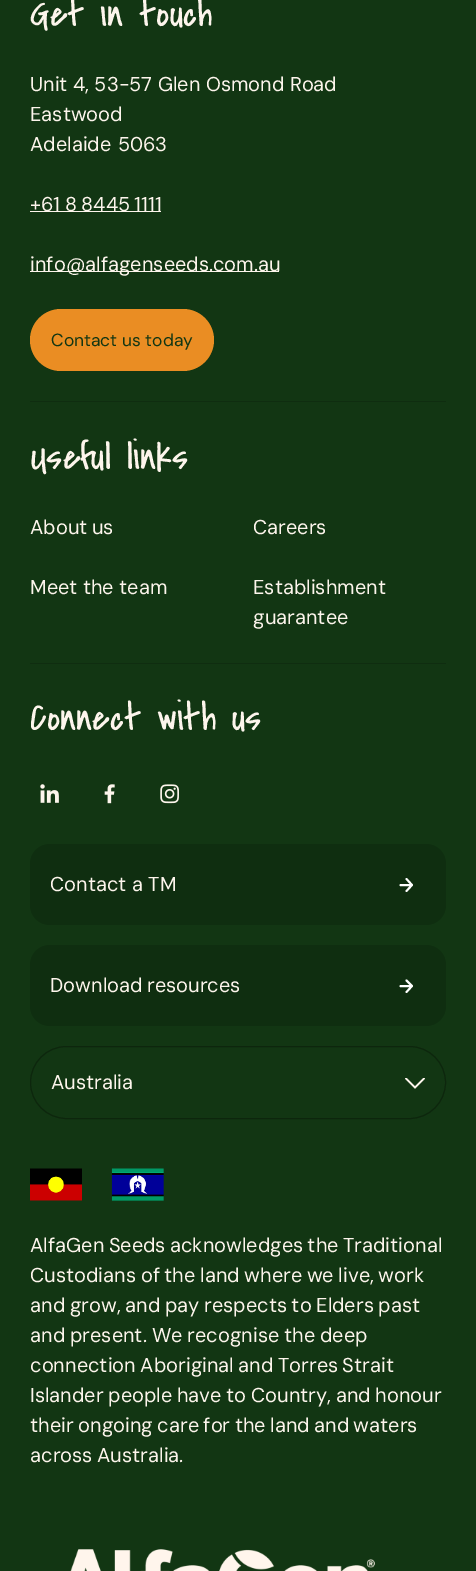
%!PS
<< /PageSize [476 1571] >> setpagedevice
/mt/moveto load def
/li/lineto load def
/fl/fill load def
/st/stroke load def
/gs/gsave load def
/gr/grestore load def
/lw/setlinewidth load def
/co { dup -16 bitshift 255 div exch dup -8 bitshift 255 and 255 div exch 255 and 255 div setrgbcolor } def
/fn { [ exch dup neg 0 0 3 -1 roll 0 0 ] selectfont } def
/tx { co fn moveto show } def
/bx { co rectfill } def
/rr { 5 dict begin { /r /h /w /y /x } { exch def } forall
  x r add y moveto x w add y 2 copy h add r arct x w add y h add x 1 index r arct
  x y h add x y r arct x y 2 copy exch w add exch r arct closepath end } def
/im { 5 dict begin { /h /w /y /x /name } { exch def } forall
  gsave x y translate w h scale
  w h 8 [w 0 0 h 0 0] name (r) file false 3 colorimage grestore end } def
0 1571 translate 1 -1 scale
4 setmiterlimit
0 0 476 1571 16#123613 bx
30 211 131 1 16#FDF5EC bx
30 271 249 1 16#FDF5EC bx
16#EA8D23 co
30 309 184 62 31 rr fl
30 401 416 1 16#0F2D10 bx
30 663 416 1 16#0F2D10 bx
(media/1.raw) 40 784 19 19 im
(media/2.raw) 104 784 11 20 im
(media/3.raw) 160 784 19 20 im
16#0F2E10 co
30 844 416 81 20 rr fl
16#FFFFFF co
1.9 lw
1 setlinecap
1 setlinejoin
400.5 885 mt 412 885 li 412 885 mt 406.5 879 li 412 885 mt 406.5 891 li st
16#0F2E10 co
30 945 416 81 20 rr fl
16#FFFFFF co
400.5 986 mt 412 986 li 412 986 mt 406.5 980.5 li 412 986 mt 406.5 992 li st
gs
405 1078 20 11 rectclip
16#FDF5EC co
1.7 lw
0 setlinecap
0 setlinejoin
424.5 1078 mt 415 1087.5 li 405.5 1078 li st
gr
16#0D260D co
1 lw
0 setlinecap
0 setlinejoin
30.5 1046.5 415 72 36 rr st
(media/4.raw) 30 1168 134 33 im
(media/5.raw) 70 1549 305 22 im
(Get in touch) 30 26 /CoveredByYourGrace-Regular 40 16#FDF5EC tx
(Unit 4, 53-57 Glen Osmond Road) 30 91 /DMSans-Regular 20 16#FDF5EC tx
(Eastwood) 30 121 /DMSans-Regular 20 16#FDF5EC tx
30 151 mt 1 0 32 (Adelaide 5063) widthshow
30 211 mt -1 0 32 (+61 8 8445 1111) widthshow
(info@alfagenseeds.com.au) 30 271 /DMSans-Regular 20 16#FDF5EC tx
(Contact us today) 51 346 /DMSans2-Regular 17.5 16#123613 tx
(Useful links) 30 469 /CoveredByYourGrace-Regular 40 16#FDF5EC tx
/DMSans-Regular 20 fn
30 534 mt -1 0 32 (About us) widthshow
(Careers) 253 534 /DMSans-Regular 20 16#FDF5EC tx
(Meet the team) 30 594 /DMSans-Regular 20 16#FDF5EC tx
(Establishment) 253 594 /DMSans-Regular 20 16#FDF5EC tx
(guarantee) 253 624 /DMSans-Regular 20 16#FDF5EC tx
(Connect with us) 30 730 /CoveredByYourGrace-Regular 40 16#FDF5EC tx
(Contact a TM) 50 891 /DMSans-Regular 20 16#FDF5EC tx
50 992 mt -1 0 32 (Download resources) widthshow
(Australia) 51 1089 /DMSans-Regular 20 16#FDF5EC tx
30 1252 mt -1 0 32 (AlfaGen Seeds acknowledges the Traditional) widthshow
30 1282 mt -.75 0 32 (Custodians of the land where we live, work) widthshow
30 1312 mt -.75 0 32 (and grow, and pay respects to Elders past) widthshow
30 1342 mt -.5 0 32 (and present. We recognise the deep) widthshow
30 1372 mt -1 0 32 (connection Aboriginal and Torres Strait) widthshow
30 1402 mt -.75 0 32 (Islander people have to Country, and honour) widthshow
30 1432 mt -1 0 32 (their ongoing care for the land and waters) widthshow
30 1462 mt -1 0 32 (across Australia.) widthshow
showpage
